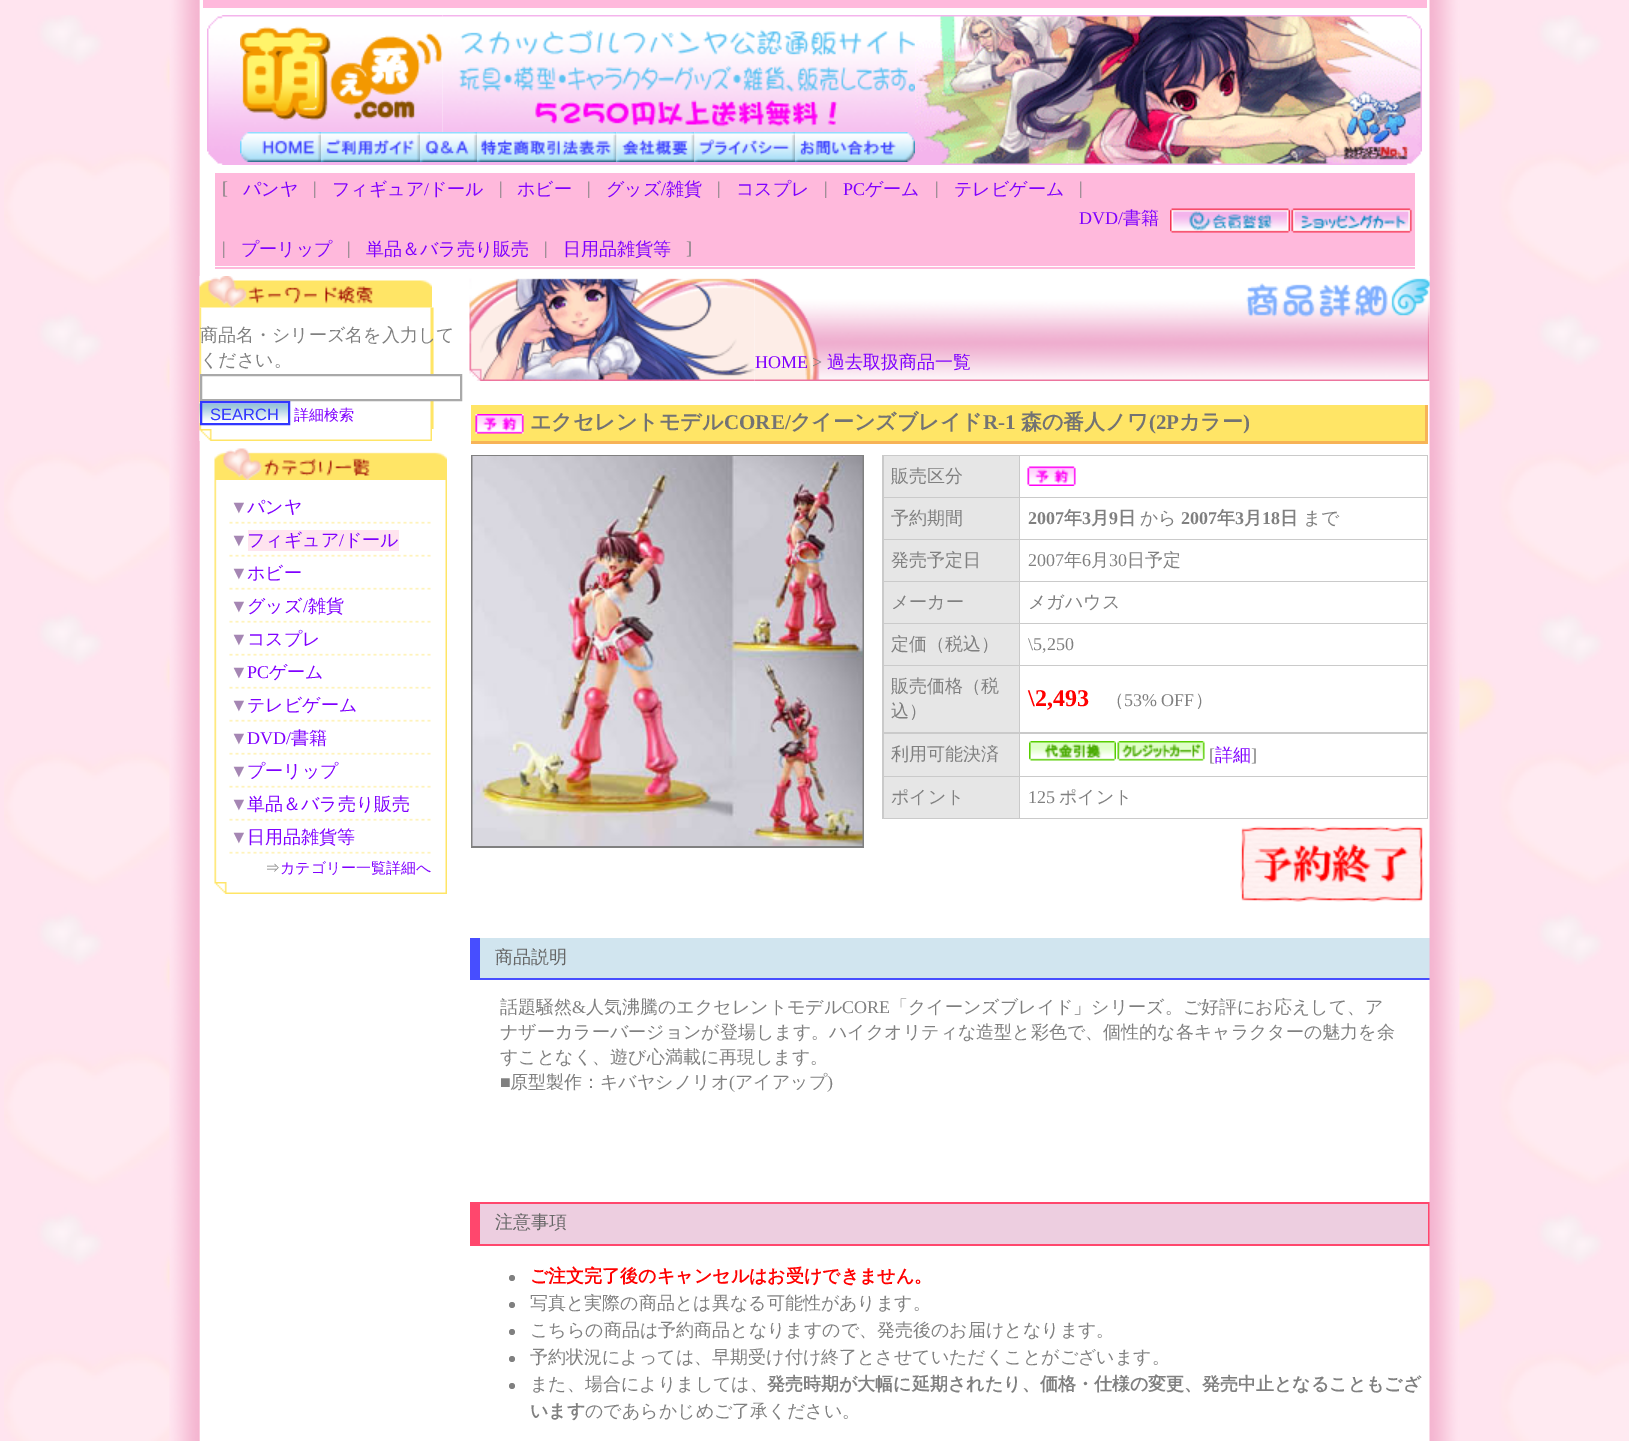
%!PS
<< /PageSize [1629 1441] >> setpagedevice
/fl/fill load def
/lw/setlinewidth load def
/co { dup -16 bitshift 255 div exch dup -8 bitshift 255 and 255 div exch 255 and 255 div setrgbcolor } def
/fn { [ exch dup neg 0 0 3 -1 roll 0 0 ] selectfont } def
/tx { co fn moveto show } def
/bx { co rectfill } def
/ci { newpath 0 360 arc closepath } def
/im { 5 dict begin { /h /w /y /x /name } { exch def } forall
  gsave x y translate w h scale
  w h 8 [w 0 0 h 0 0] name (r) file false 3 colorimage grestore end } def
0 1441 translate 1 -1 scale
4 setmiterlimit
0 0 1629 1441 16#FFE4EF bx
(media/1.raw) 4 15 1625 1426 im
(media/2.raw) 169 0 31 1441 im
200 0 1230 1441 16#FFFFFF bx
203 0 1224 8 16#FFB9DC bx
(media/3.raw) 207 15 33 150 im
(media/4.raw) 240 15 203 117 im
(media/5.raw) 442 15 473 117 im
(media/6.raw) 915 15 507 150 im
(media/7.raw) 240 132 81 30 im
(media/8.raw) 321 132 99 30 im
(media/9.raw) 420 132 57 30 im
(media/10.raw) 477 132 140 30 im
(media/11.raw) 616 132 79 30 im
(media/12.raw) 694 132 101 30 im
(media/13.raw) 795 132 120 30 im
240 162 675 3 16#F4B4EC bx
215 173 1200 93 16#FFB9DC bx
(media/14.raw) 1170 208 120 25 im
(media/15.raw) 1291 208 121 25 im
215 267 1200 2 16#FFB9DC bx
(media/17.raw) 199 307 235 122 im
(media/16.raw) 199 276 233 32 im
430 376 4 23 16#FFFFFF bx
16#A9A9A9 co
2 lw
201 375 260 25 rectstroke
(media/18.raw) 199 402 89 21 im
16#3237FF co
201 402 88 22 rectstroke
(media/19.raw) 199 429 233 12 im
(media/20.raw) 214 448 233 32 im
(media/21.raw) 214 480 233 402 im
(media/22.raw) 229 521 202 3 im
248 530 151 21 16#FFE4EF bx
(media/22.raw) 229 554 202 3 im
(media/22.raw) 229 587 202 3 im
(media/22.raw) 229 620 202 3 im
(media/22.raw) 229 653 202 3 im
(media/22.raw) 229 686 202 3 im
(media/22.raw) 229 719 202 3 im
(media/22.raw) 229 752 202 3 im
(media/22.raw) 229 785 202 3 im
(media/22.raw) 229 818 202 3 im
(media/22.raw) 229 851 202 3 im
(media/23.raw) 214 882 233 12 im
(media/26.raw) 754 318 676 63 im
(media/24.raw) 469 278 286 103 im
480 938 950 40 16#D1E5EF bx
480 978 950 2 16#474EFF bx
480 1202 950 2 16#FF476D bx
1428 1202 2 43 16#FF476D bx
470 1244 960 2 16#FF476D bx
(media/33.raw) 1429 0 31 1441 im
(media/25.raw) 754 276 676 42 im
471 405 954 36 16#FFE566 bx
1425 405 3 39 16#F7B357 bx
471 441 957 3 16#F7B357 bx
(media/27.raw) 475 414 49 20 im
471 455 393 393 16#808080 bx
(media/28.raw) 472 456 391 390 im
882 455 546 364 16#CACACA bx
884 456 135 41 16#E6E6E6 bx
1020 456 407 41 16#FFFFFF bx
(media/29.raw) 1027 466 49 20 im
884 498 135 41 16#E6E6E6 bx
1020 498 407 41 16#FFFFFF bx
884 540 135 41 16#E6E6E6 bx
1020 540 407 41 16#FFFFFF bx
884 582 135 41 16#E6E6E6 bx
1020 582 407 41 16#FFFFFF bx
884 624 135 41 16#E6E6E6 bx
1020 624 407 41 16#FFFFFF bx
884 666 135 66 16#E6E6E6 bx
1020 666 407 66 16#FFFFFF bx
884 734 135 42 16#E6E6E6 bx
1020 734 407 42 16#FFFFFF bx
(media/30.raw) 1029 741 87 20 im
(media/31.raw) 1117 741 88 20 im
884 777 135 41 16#E6E6E6 bx
1020 777 407 41 16#FFFFFF bx
(media/32.raw) 1240 826 184 76 im
470 938 10 42 16#474EFF bx
480 1204 948 40 16#EDCEE0 bx
470 1202 10 42 16#FF476D bx
16#808080 co
512 1278 3 ci fl
512 1305 3 ci fl
512 1332 3 ci fl
512 1359 3 ci fl
512 1386 3 ci fl
([) 222 194 /LiberationSerif-Regular 18 16#808080 tx
(パンヤ) 243 195 /WenQuanYiZenHei-Medium 18 16#8000FF tx
(|) 313 194 /LiberationSerif-Regular 18 16#808080 tx
(フィギュア) 332 195 /WenQuanYiZenHei-Medium 18 16#8000FF tx
(/) 424 195 /LiberationSerif-Regular 18 16#8000FF tx
(ドール) 429 195 /WenQuanYiZenHei-Medium 18 16#8000FF tx
(|) 499 194 /LiberationSerif-Regular 18 16#808080 tx
(ホビー) 517 195 /WenQuanYiZenHei-Medium 18 16#8000FF tx
(|) 587 194 /LiberationSerif-Regular 18 16#808080 tx
(グッズ) 606 195 /WenQuanYiZenHei-Medium 18 16#8000FF tx
(/) 661 195 /LiberationSerif-Regular 18 16#8000FF tx
(雑貨) 666 195 /WenQuanYiZenHei-Medium 18 16#8000FF tx
(|) 717 194 /LiberationSerif-Regular 18 16#808080 tx
(コスプレ) 736 195 /WenQuanYiZenHei-Medium 18 16#8000FF tx
(|) 824 194 /LiberationSerif-Regular 18 16#808080 tx
(PC) 843 195 /LiberationSerif-Regular 18 16#8000FF tx
(ゲーム) 865 195 /WenQuanYiZenHei-Medium 18 16#8000FF tx
(|) 935 194 /LiberationSerif-Regular 18 16#808080 tx
(テレビゲーム) 954 195 /WenQuanYiZenHei-Medium 18 16#8000FF tx
(|) 1079 194 /LiberationSerif-Regular 18 16#808080 tx
(DVD/) 1079 224 /LiberationSerif-Regular 18 16#8000FF tx
(書籍) 1123 224 /WenQuanYiZenHei-Medium 18 16#8000FF tx
(|) 222 254 /LiberationSerif-Regular 18 16#808080 tx
(プーリップ) 241 255 /WenQuanYiZenHei-Medium 18 16#8000FF tx
(|) 347 254 /LiberationSerif-Regular 18 16#808080 tx
(単品＆バラ売り販売) 366 255 /WenQuanYiZenHei-Medium 18 16#8000FF tx
(|) 544 254 /LiberationSerif-Regular 18 16#808080 tx
(日用品雑貨等) 563 255 /WenQuanYiZenHei-Medium 18 16#8000FF tx
(]) 686 254 /LiberationSerif-Regular 18 16#808080 tx
(商品名・シリーズ名を入力して) 200 341 /WenQuanYiZenHei-Medium 18 16#808080 tx
(ください。) 200 366 /WenQuanYiZenHei-Medium 18 16#808080 tx
(SEARCH) 210 420 /LiberationSans-Regular 16.5 16#3237FF tx
(詳細検索) 294 420 /WenQuanYiZenHei-Medium 15 16#8000FF tx
(▼) 230 513 /LiberationSerif-Regular 18 16#A586B3 tx
(パンヤ) 247 513 /WenQuanYiZenHei-Medium 18 16#8000FF tx
(▼) 230 546 /LiberationSerif-Regular 18 16#A586B3 tx
(フィギュア) 247 546 /WenQuanYiZenHei-Medium 18 16#8000FF tx
(/) 339 546 /LiberationSerif-Regular 18 16#8000FF tx
(ドール) 344 546 /WenQuanYiZenHei-Medium 18 16#8000FF tx
(▼) 230 579 /LiberationSerif-Regular 18 16#A586B3 tx
(ホビー) 247 579 /WenQuanYiZenHei-Medium 18 16#8000FF tx
(▼) 230 612 /LiberationSerif-Regular 18 16#A586B3 tx
(グッズ) 247 612 /WenQuanYiZenHei-Medium 18 16#8000FF tx
(/) 303 612 /LiberationSerif-Regular 18 16#8000FF tx
(雑貨) 308 612 /WenQuanYiZenHei-Medium 18 16#8000FF tx
(▼) 230 645 /LiberationSerif-Regular 18 16#A586B3 tx
(コスプレ) 247 645 /WenQuanYiZenHei-Medium 18 16#8000FF tx
(▼) 230 678 /LiberationSerif-Regular 18 16#A586B3 tx
(PC) 247 678 /LiberationSerif-Regular 18 16#8000FF tx
(ゲーム) 269 678 /WenQuanYiZenHei-Medium 18 16#8000FF tx
(▼) 230 711 /LiberationSerif-Regular 18 16#A586B3 tx
(テレビゲーム) 247 711 /WenQuanYiZenHei-Medium 18 16#8000FF tx
(▼) 230 744 /LiberationSerif-Regular 18 16#A586B3 tx
(DVD/) 247 744 /LiberationSerif-Regular 18 16#8000FF tx
(書籍) 291 744 /WenQuanYiZenHei-Medium 18 16#8000FF tx
(▼) 230 777 /LiberationSerif-Regular 18 16#A586B3 tx
(プーリップ) 247 777 /WenQuanYiZenHei-Medium 18 16#8000FF tx
(▼) 230 810 /LiberationSerif-Regular 18 16#A586B3 tx
(単品＆バラ売り販売) 247 810 /WenQuanYiZenHei-Medium 18 16#8000FF tx
(▼) 230 843 /LiberationSerif-Regular 18 16#A586B3 tx
(日用品雑貨等) 247 843 /WenQuanYiZenHei-Medium 18 16#8000FF tx
(⇒) 265 873 /WenQuanYiZenHei-Medium 15 16#808080 tx
(カテゴリー一覧詳細へ) 280 873 /WenQuanYiZenHei-Medium 15 16#8000FF tx
(HOME) 755 368 /LiberationSerif-Regular 18 16#8000FF tx
(>) 812 368 /LiberationSerif-Regular 18 16#808080 tx
(過去取扱商品一覧) 827 368 /WenQuanYiZenHei-Medium 18 16#8000FF tx
(エクセレントモデル) 530 429 /WenQuanYiZenHei-Bold 21 16#737373 tx
(CORE/) 724 429 /LiberationSerif-Bold 21 16#737373 tx
(クイーンズブレイド) 790 429 /WenQuanYiZenHei-Bold 21 16#737373 tx
(R-1) 983 429 /LiberationSerif-Bold 21 16#737373 tx
(森の番人ノワ) 1021 429 /WenQuanYiZenHei-Bold 21 16#737373 tx
(\(2P) 1149 429 /LiberationSerif-Bold 21 16#737373 tx
(カラー) 1179 429 /WenQuanYiZenHei-Bold 21 16#737373 tx
(\)) 1243 429 /LiberationSerif-Bold 21 16#737373 tx
(販売区分) 891 482 /WenQuanYiZenHei-Medium 18 16#808080 tx
(予約期間) 891 524 /WenQuanYiZenHei-Medium 18 16#808080 tx
(2007) 1028 524 /LiberationSerif-Bold 18 16#808080 tx
(年) 1064 524 /WenQuanYiZenHei-Bold 18 16#808080 tx
(3) 1082 524 /LiberationSerif-Bold 18 16#808080 tx
(月) 1091 524 /WenQuanYiZenHei-Bold 18 16#808080 tx
(9) 1109 524 /LiberationSerif-Bold 18 16#808080 tx
(日) 1118 524 /WenQuanYiZenHei-Bold 18 16#808080 tx
(から) 1140 524 /WenQuanYiZenHei-Medium 18 16#808080 tx
(2007) 1181 524 /LiberationSerif-Bold 18 16#808080 tx
(年) 1217 524 /WenQuanYiZenHei-Bold 18 16#808080 tx
(3) 1235 524 /LiberationSerif-Bold 18 16#808080 tx
(月) 1244 524 /WenQuanYiZenHei-Bold 18 16#808080 tx
(18) 1262 524 /LiberationSerif-Bold 18 16#808080 tx
(日) 1280 524 /WenQuanYiZenHei-Bold 18 16#808080 tx
(まで) 1303 524 /WenQuanYiZenHei-Medium 18 16#808080 tx
(発売予定日) 891 566 /WenQuanYiZenHei-Medium 18 16#808080 tx
(2007) 1028 566 /LiberationSerif-Regular 18 16#808080 tx
(年) 1064 566 /WenQuanYiZenHei-Medium 18 16#808080 tx
(6) 1082 566 /LiberationSerif-Regular 18 16#808080 tx
(月) 1091 566 /WenQuanYiZenHei-Medium 18 16#808080 tx
(30) 1109 566 /LiberationSerif-Regular 18 16#808080 tx
(日予定) 1127 566 /WenQuanYiZenHei-Medium 18 16#808080 tx
(メーカー) 891 608 /WenQuanYiZenHei-Medium 18 16#808080 tx
(メガハウス) 1028 608 /WenQuanYiZenHei-Medium 18 16#808080 tx
(定価（税込）) 891 650 /WenQuanYiZenHei-Medium 18 16#808080 tx
(\\5,250) 1028 650 /LiberationSerif-Regular 18 16#808080 tx
(販売価格（税) 891 692 /WenQuanYiZenHei-Medium 18 16#808080 tx
(込）) 891 717 /WenQuanYiZenHei-Medium 18 16#808080 tx
(\\2,493) 1028 706 /LiberationSerif-Bold 24 16#FF0000 tx
(（) 1106 706 /WenQuanYiZenHei-Medium 18 16#808080 tx
(53% OFF) 1124 706 /LiberationSerif-Regular 18 16#808080 tx
(）) 1195 706 /WenQuanYiZenHei-Medium 18 16#808080 tx
(利用可能決済) 891 760 /WenQuanYiZenHei-Medium 18 16#808080 tx
([) 1209 761 /LiberationSerif-Regular 18 16#808080 tx
(詳細) 1215 761 /WenQuanYiZenHei-Medium 18 16#8000FF tx
(]) 1251 761 /LiberationSerif-Regular 18 16#808080 tx
(ポイント) 891 803 /WenQuanYiZenHei-Medium 18 16#808080 tx
(125) 1028 803 /LiberationSerif-Regular 18 16#808080 tx
(ポイント) 1059 803 /WenQuanYiZenHei-Medium 18 16#808080 tx
(商品説明) 495 963 /WenQuanYiZenHei-Medium 18 16#666666 tx
(話題騒然) 500 1013 /WenQuanYiZenHei-Medium 18 16#808080 tx
(&) 572 1013 /LiberationSerif-Regular 18 16#808080 tx
(人気沸騰のエクセレントモデル) 586 1013 /WenQuanYiZenHei-Medium 18 16#808080 tx
(CORE) 842 1013 /LiberationSerif-Regular 18 16#808080 tx
(「クイーンズブレイド」シリーズ。ご好評にお応えして、ア) 890 1013 /WenQuanYiZenHei-Medium 18 16#808080 tx
(ナザーカラーバージョンが登場します。ハイクオリティな造型と彩色で、個性的な各キャラクターの魅力を余) 500 1038 /WenQuanYiZenHei-Medium 18 16#808080 tx
(すことなく、遊び心満載に再現します。) 500 1063 /WenQuanYiZenHei-Medium 18 16#808080 tx
(■) 500 1088 /LiberationSerif-Regular 18 16#808080 tx
(原型製作：キバヤシノリオ) 510 1088 /WenQuanYiZenHei-Medium 18 16#808080 tx
(\() 729 1088 /LiberationSerif-Regular 18 16#808080 tx
(アイアップ) 735 1088 /WenQuanYiZenHei-Medium 18 16#808080 tx
(\)) 827 1088 /LiberationSerif-Regular 18 16#808080 tx
(注意事項) 495 1228 /WenQuanYiZenHei-Medium 18 16#666666 tx
(ご注文完了後のキャンセルはお受けできません。) 530 1282 /WenQuanYiZenHei-Bold 18 16#FF0000 tx
(写真と実際の商品とは異なる可能性があります。) 530 1309 /WenQuanYiZenHei-Medium 18 16#808080 tx
(こちらの商品は予約商品となりますので、発売後のお届けとなります。) 530 1336 /WenQuanYiZenHei-Medium 18 16#808080 tx
(予約状況によっては、早期受け付け終了とさせていただくことがございます。) 530 1363 /WenQuanYiZenHei-Medium 18 16#808080 tx
(また、場合によりましては、) 530 1390 /WenQuanYiZenHei-Medium 18 16#808080 tx
(発売時期が大幅に延期されたり、価格・仕様の変更、発売中止となることもござ) 767 1390 /WenQuanYiZenHei-Bold 18 16#808080 tx
(います) 530 1417 /WenQuanYiZenHei-Bold 18 16#808080 tx
(のであらかじめご了承ください。) 585 1417 /WenQuanYiZenHei-Medium 18 16#808080 tx
showpage
